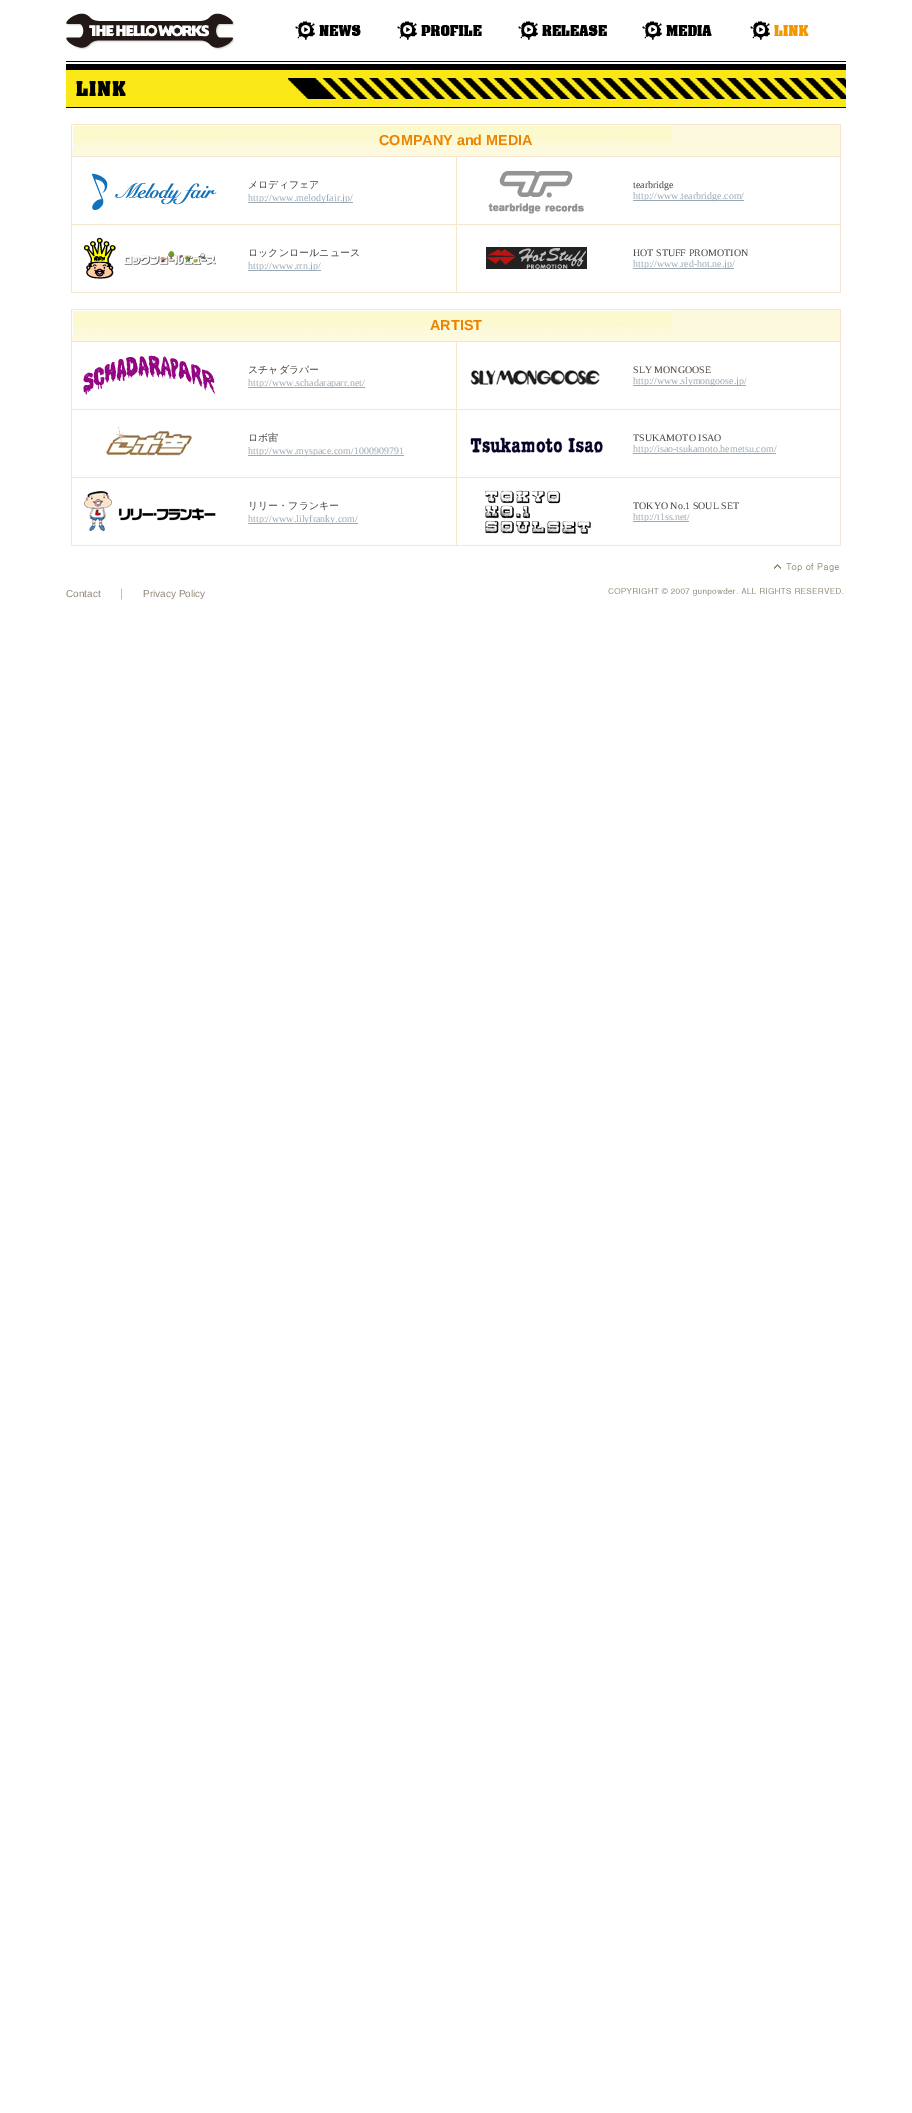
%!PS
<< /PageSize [912 2113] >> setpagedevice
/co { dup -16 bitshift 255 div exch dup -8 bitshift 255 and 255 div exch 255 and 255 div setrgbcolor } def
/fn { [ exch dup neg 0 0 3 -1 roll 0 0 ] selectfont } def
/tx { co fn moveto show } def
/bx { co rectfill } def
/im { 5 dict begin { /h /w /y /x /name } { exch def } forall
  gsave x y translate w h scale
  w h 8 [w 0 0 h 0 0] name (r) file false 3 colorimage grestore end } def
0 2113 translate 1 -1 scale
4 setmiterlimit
0 0 912 2113 16#FFFFFF bx
(media/1.raw) 66 13 169 37 im
(media/2.raw) 295 21 66 19 im
(media/3.raw) 397 21 85 19 im
(media/4.raw) 518 21 89 19 im
(media/5.raw) 642 21 70 19 im
(media/6.raw) 750 21 59 19 im
(media/7.raw) 66 61 780 47 im
71 124 770 1 16#F5E6D1 bx
840 124 1 169 16#F5E6D1 bx
72 125 768 31 16#FCF9DF bx
(media/8.raw) 72 125 600 25 im
456 292 385 1 16#F5E6D1 bx
456 224 1 69 16#F7E8CC bx
456 224 385 1 16#F5E6D1 bx
456 156 1 69 16#F7E8CC bx
71 292 386 1 16#F5E6D1 bx
71 224 1 69 16#F7E8CC bx
71 224 386 1 16#F5E6D1 bx
71 156 1 69 16#F7E8CC bx
71 156 770 1 16#F5E6D1 bx
71 124 1 33 16#F7E8CC bx
(media/9.raw) 91 173 126 37 im
248 202 105 1 16#9BA9B4 bx
(media/10.raw) 488 171 96 43 im
633 200 111 1 16#9BA9B4 bx
(media/11.raw) 83 237 133 42 im
248 270 73 1 16#9BA9B4 bx
(media/12.raw) 486 247 101 22 im
633 268 101 1 16#9BA9B4 bx
71 309 770 1 16#F5E6D1 bx
840 309 1 237 16#F5E6D1 bx
72 310 768 31 16#FCF9DF bx
(media/8.raw) 72 310 600 25 im
456 545 385 1 16#F5E6D1 bx
456 477 1 69 16#F7E8CC bx
456 477 385 1 16#F5E6D1 bx
456 409 1 69 16#F7E8CC bx
456 409 385 1 16#F5E6D1 bx
456 341 1 69 16#F7E8CC bx
71 545 386 1 16#F5E6D1 bx
71 477 1 69 16#F7E8CC bx
71 477 386 1 16#F5E6D1 bx
71 409 1 69 16#F7E8CC bx
71 409 386 1 16#F5E6D1 bx
71 341 1 69 16#F7E8CC bx
71 341 770 1 16#F5E6D1 bx
71 309 1 33 16#F7E8CC bx
(media/13.raw) 83 355 132 40 im
248 387 117 1 16#9BA9B4 bx
(media/14.raw) 470 370 130 15 im
633 385 113 1 16#9BA9B4 bx
(media/15.raw) 106 426 87 30 im
248 455 156 1 16#9BA9B4 bx
(media/16.raw) 470 437 133 16 im
633 453 143 1 16#9BA9B4 bx
(media/17.raw) 84 491 132 40 im
248 523 110 1 16#9BA9B4 bx
(media/18.raw) 485 490 108 44 im
633 521 56 1 16#9BA9B4 bx
(media/19.raw) 774 563 65 9 im
(media/20.raw) 608 588 236 8 im
(COMPANY and MEDIA) 379 145 /LiberationSans-Bold 14.4 16#EB8300 tx
(メロディフェア) 248 188 /WenQuanYiZenHei-Medium 10 16#46413C tx
(http://www.melodyfair.jp/) 248 201 /LiberationSerif-Regular 10 16#9BA9B4 tx
(tearbridge) 633 188 /LiberationSerif-Regular 10 16#46413C tx
(http://www.tearbridge.com/) 633 199 /LiberationSerif-Regular 10 16#9BA9B4 tx
(ロックンロールニュース) 248 256 /WenQuanYiZenHei-Medium 10 16#46413C tx
(http://www.rrn.jp/) 248 269 /LiberationSerif-Regular 10 16#9BA9B4 tx
(HOT STUFF PROMOTION) 633 256 /LiberationSerif-Regular 10 16#46413C tx
(http://www.red-hot.ne.jp/) 633 267 /LiberationSerif-Regular 10 16#9BA9B4 tx
(ARTIST) 430 330 /LiberationSans-Bold 14.4 16#EB8300 tx
(スチャダラパー) 248 373 /WenQuanYiZenHei-Medium 10 16#46413C tx
(http://www.schadaraparr.net/) 248 386 /LiberationSerif-Regular 10 16#9BA9B4 tx
(SLY MONGOOSE) 633 373 /LiberationSerif-Regular 10 16#46413C tx
(http://www.slymongoose.jp/) 633 384 /LiberationSerif-Regular 10 16#9BA9B4 tx
(ロボ宙) 248 441 /WenQuanYiZenHei-Medium 10 16#46413C tx
(http://www.myspace.com/1000909791) 248 454 /LiberationSerif-Regular 10 16#9BA9B4 tx
(TSUKAMOTO ISAO) 633 441 /LiberationSerif-Regular 10 16#46413C tx
(http://isao-tsukamoto.hemetsu.com/) 633 452 /LiberationSerif-Regular 10 16#9BA9B4 tx
(リリー・フランキー) 248 509 /WenQuanYiZenHei-Medium 10 16#46413C tx
(http://www.lilyfranky.com/) 248 522 /LiberationSerif-Regular 10 16#9BA9B4 tx
(TOKYO No.1 SOUL SET) 633 509 /LiberationSerif-Regular 10 16#46413C tx
(http://t1ss.net/) 633 520 /LiberationSerif-Regular 10 16#9BA9B4 tx
(Contact) 66 597 /LiberationSans-Regular 10 16#908875 tx
(|) 120 597 /LiberationSerif-Regular 12 16#908875 tx
(Privacy Policy) 143 597 /LiberationSans-Regular 10 16#908875 tx
showpage
